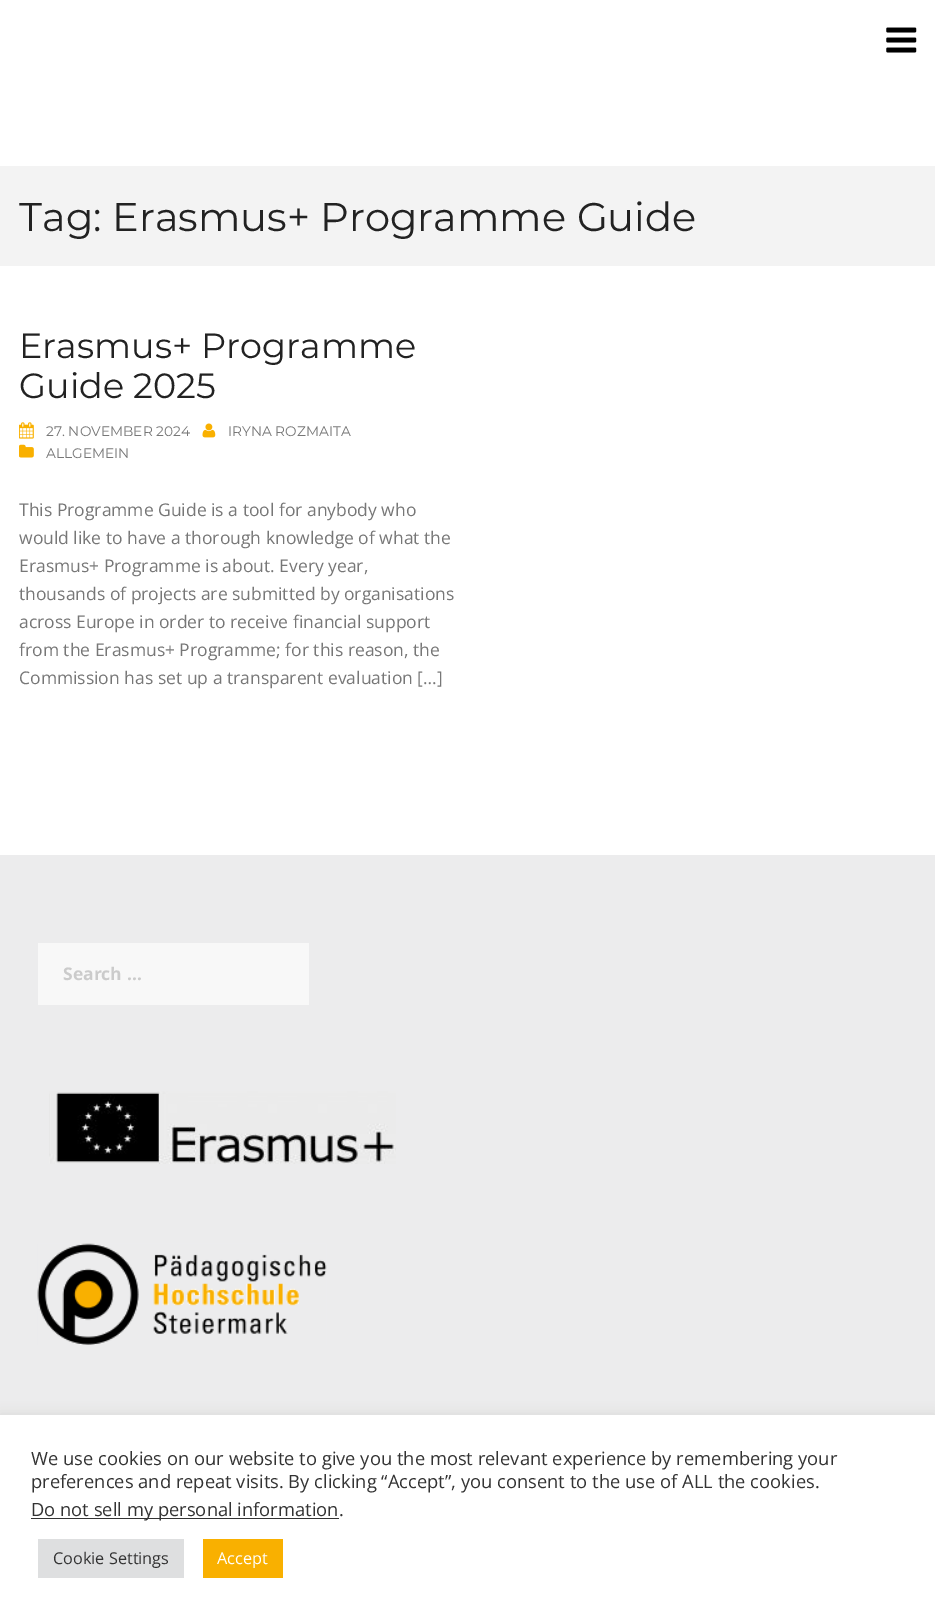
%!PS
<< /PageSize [935 1615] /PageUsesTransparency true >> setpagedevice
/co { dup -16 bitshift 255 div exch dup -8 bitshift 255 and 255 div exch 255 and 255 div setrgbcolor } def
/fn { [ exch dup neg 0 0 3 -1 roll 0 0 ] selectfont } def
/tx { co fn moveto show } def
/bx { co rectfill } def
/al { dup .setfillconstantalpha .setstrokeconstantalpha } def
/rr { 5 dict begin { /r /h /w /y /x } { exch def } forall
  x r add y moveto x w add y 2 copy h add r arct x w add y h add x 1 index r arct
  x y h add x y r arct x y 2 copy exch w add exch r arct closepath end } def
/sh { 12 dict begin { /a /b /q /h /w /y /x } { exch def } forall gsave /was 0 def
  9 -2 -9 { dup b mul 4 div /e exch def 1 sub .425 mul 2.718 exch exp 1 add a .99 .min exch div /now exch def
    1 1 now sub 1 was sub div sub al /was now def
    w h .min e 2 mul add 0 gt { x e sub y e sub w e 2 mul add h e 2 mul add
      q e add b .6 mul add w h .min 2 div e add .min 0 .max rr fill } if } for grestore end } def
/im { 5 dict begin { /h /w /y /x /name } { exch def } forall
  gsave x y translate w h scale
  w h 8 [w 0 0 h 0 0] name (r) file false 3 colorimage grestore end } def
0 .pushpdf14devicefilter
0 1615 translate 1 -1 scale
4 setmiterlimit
0 0 935 1615 16#FFFFFF bx
(media/1.raw) 886 27 31 26 im
0 166 935 100 16#F3F3F3 bx
(media/2.raw) 19 422 15 17 im
(media/3.raw) 202 423 14 15 im
(media/4.raw) 19 444 15 14 im
0 855 935 560 16#ECECED bx
38 943 271 62 16#F8F8F8 bx
(media/5.raw) 49 1091 347 73 im
(media/6.raw) 37 1243 290 102 im
16#ACABAB co
0 1414 935 200 0 6 .3 sh
0 1415 935 200 16#FFFFFF bx
31 1518 308 1 16#333333 bx
38 1539 146 39 16#DEDFE0 bx
203 1539 80 39 16#F9B000 bx
(Tag: Erasmus+ Programme Guide) 19 231 /Montserrat-Regular 40 16#222222 tx
(Erasmus+ Programme) 19 358 /Montserrat-Regular 35 16#222222 tx
(Guide 2025) 19 398 /Montserrat-Regular 35 16#222222 tx
(27. NOVEMBER 2024) 46 436 /Montserrat-Regular 13.75 16#777777 tx
(IRYNA ROZMAITA) 228 436 /Montserrat-Regular 13.75 16#777777 tx
(ALLGEMEIN) 46 458 /Montserrat-Regular 13.75 16#777777 tx
(This Programme Guide is a tool for anybody who) 19 516 /OpenSans-Regular 17.5 16#777777 tx
(would like to have a thorough knowledge of what the) 19 544 /OpenSans-Regular 17.5 16#777777 tx
(Erasmus+ Programme is about. Every year,) 19 572 /OpenSans-Regular 17.5 16#777777 tx
(thousands of projects are submitted by organisations) 19 600 /OpenSans-Regular 17.5 16#777777 tx
(across Europe in order to receive financial support) 19 628 /OpenSans-Regular 17.5 16#777777 tx
(from the Erasmus+ Programme; for this reason, the) 19 656 /OpenSans-Regular 17.5 16#777777 tx
(Commission has set up a transparent evaluation […]) 19 684 /OpenSans-Regular 17.5 16#777777 tx
(Search …) 63 980 /OpenSans-Bold 17.5 16#CBCBCB tx
(We use cookies on our website to give you the most relevant experience by remembering your) 31 1465 /OpenSans-Regular 18.35 16#333333 tx
(preferences and repeat visits. By clicking “Accept”, you consent to the use of ALL the cookies.) 31 1488 /OpenSans-Regular 18.35 16#333333 tx
(Do not sell my personal information.) 31 1516 /OpenSans-Regular 18.35 16#333333 tx
(Cookie Settings) 53 1564 /OpenSans-Regular 16.25 16#333333 tx
(Accept) 217 1564 /OpenSans-Regular 16.25 16#FFFFFF tx
.poppdf14devicefilter showpage
